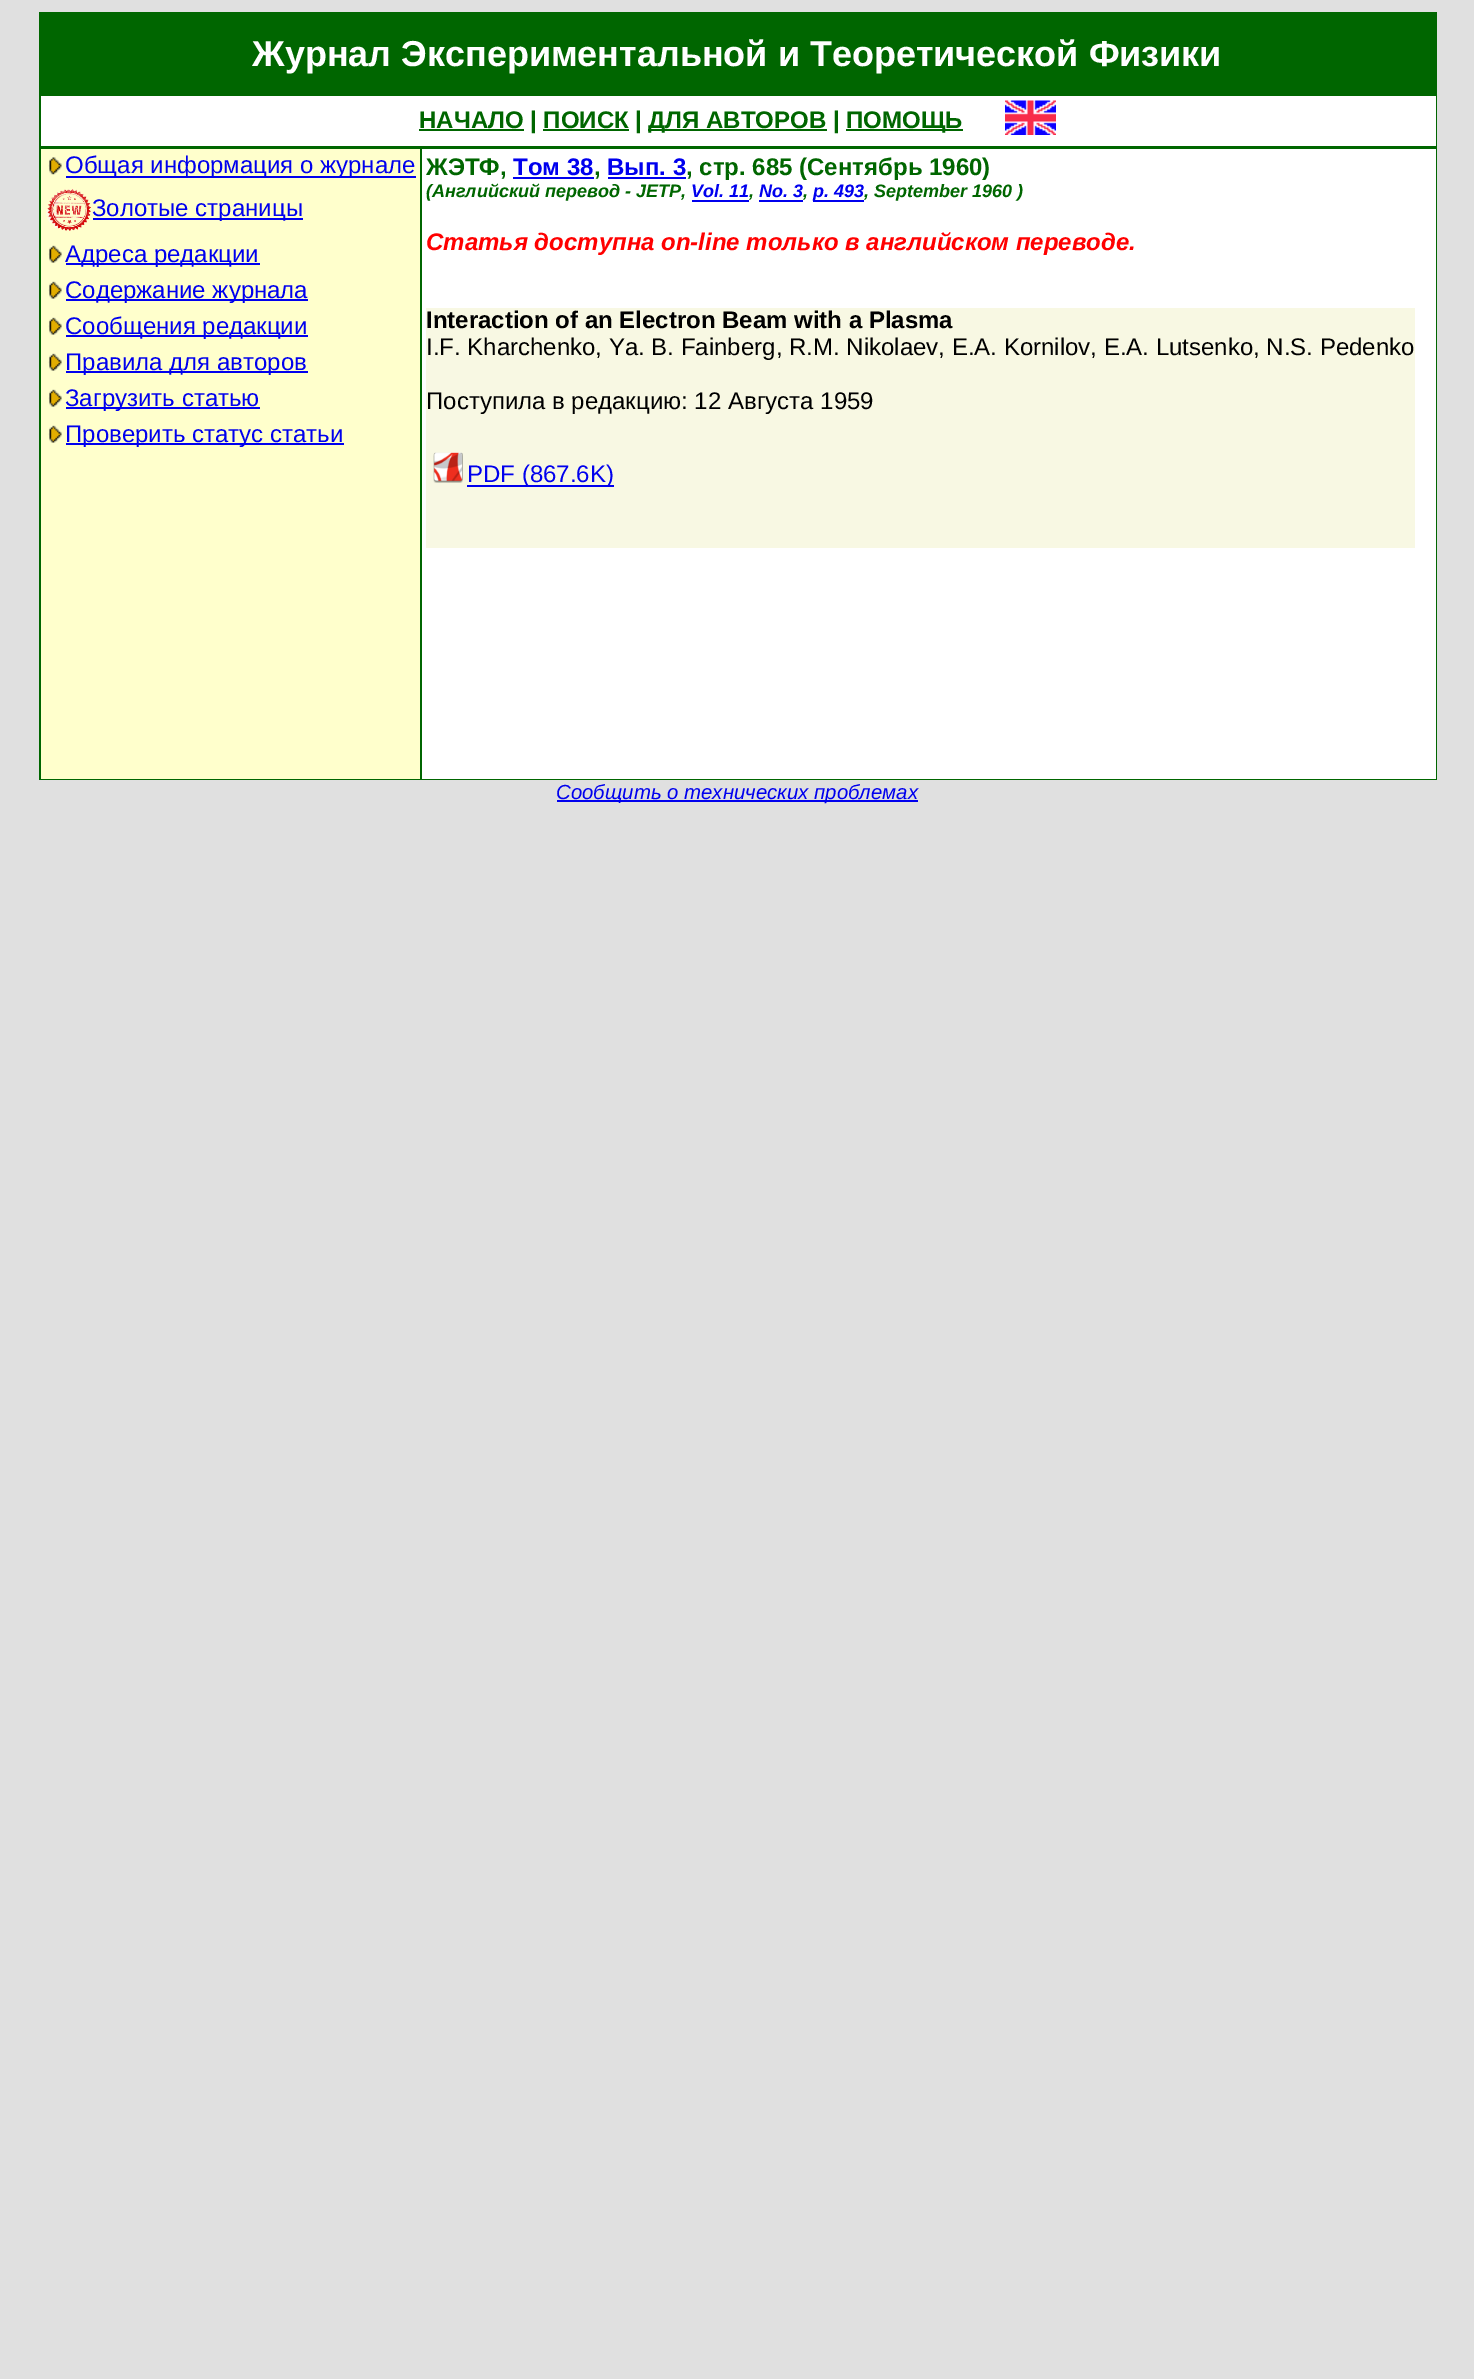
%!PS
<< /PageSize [1474 2379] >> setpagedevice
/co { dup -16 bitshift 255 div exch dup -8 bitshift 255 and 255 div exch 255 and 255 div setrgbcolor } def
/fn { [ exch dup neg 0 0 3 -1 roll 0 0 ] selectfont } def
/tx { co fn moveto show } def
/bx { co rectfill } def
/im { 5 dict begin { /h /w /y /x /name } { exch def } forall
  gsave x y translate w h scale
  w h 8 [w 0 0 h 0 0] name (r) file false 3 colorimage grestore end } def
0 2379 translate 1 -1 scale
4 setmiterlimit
0 0 1474 2379 16#E0E0E0 bx
39 12 1398 768 16#006600 bx
41 96 1395 683 16#FFFFFF bx
419 129 105 2 16#006600 bx
648 129 179 2 16#006600 bx
846 129 117 2 16#006600 bx
543 129 86 2 16#006600 bx
(media/1.raw) 1005 100 51 35 im
41 146 1395 3 16#006600 bx
41 149 379 630 16#FFFFCC bx
(media/2.raw) 48 157 14 18 im
66 176 350 2 16#0000EE bx
(media/3.raw) 46 189 45 42 im
93 218 210 2 16#0000EE bx
(media/4.raw) 48 245 14 18 im
66 263 194 2 16#0000EE bx
(media/4.raw) 48 281 14 18 im
66 299 242 2 16#0000EE bx
(media/4.raw) 48 317 14 18 im
66 335 242 2 16#0000EE bx
(media/4.raw) 48 353 14 18 im
66 371 242 2 16#0000EE bx
(media/4.raw) 48 389 14 18 im
66 407 194 2 16#0000EE bx
(media/4.raw) 48 425 14 18 im
66 443 278 2 16#0000EE bx
420 149 2 630 16#006600 bx
513 177 81 2 16#0000EE bx
608 177 78 2 16#0000EE bx
692 200 57 2 16#0000EE bx
759 200 44 2 16#0000EE bx
813 200 51 2 16#0000EE bx
426 308 989 240 16#F8F8E3 bx
(media/5.raw) 433 452 30 31 im
467 485 147 2 16#0000EE bx
557 800 361 2 16#0000EE bx
(Журнал Экспериментальной и Теоретической Физики) 252 66 /LiberationSans-Bold 36 16#FFFFFF tx
(НАЧАЛО | ПОИСК |) 419 128 /LiberationSans-Bold 24 16#006600 tx
(ДЛЯ АВТОРОВ |) 648 128 /LiberationSans-Bold 24 16#006600 tx
(ПОМОЩЬ) 846 128 /LiberationSans-Bold 24 16#006600 tx
(Общая информация о журнале) 65 173 /LiberationSans-Regular 24 16#0000EE tx
(Золотые страницы) 92 216 /LiberationSans-Regular 24 16#0000EE tx
(Адреса редакции) 65 262 /LiberationSans-Regular 24 16#0000EE tx
(Содержание журнала) 65 298 /LiberationSans-Regular 24 16#0000EE tx
(Сообщения редакции) 65 334 /LiberationSans-Regular 24 16#0000EE tx
(Правила для авторов) 65 370 /LiberationSans-Regular 24 16#0000EE tx
(Загрузить статью) 65 406 /LiberationSans-Regular 24 16#0000EE tx
(Проверить статус статьи) 65 442 /LiberationSans-Regular 24 16#0000EE tx
(ЖЭТФ,) 426 175 /LiberationSans-Bold 24 16#006600 tx
(Том 38) 513 175 /LiberationSans-Bold 24 16#0000EE tx
(,) 594 175 /LiberationSans-Bold 24 16#006600 tx
(Вып. 3) 607 175 /LiberationSans-Bold 24 16#0000EE tx
(, стр. 685 \(Сентябрь 1960\)) 686 175 /LiberationSans-Bold 24 16#006600 tx
(\(Английский перевод - JETP,) 426 197 /LiberationSans-BoldItalic 18 16#006600 tx
(Vol. 11) 691 197 /LiberationSans-BoldItalic 18 16#0000EE tx
(,) 749 197 /LiberationSans-BoldItalic 18 16#006600 tx
(No. 3) 759 197 /LiberationSans-BoldItalic 18 16#0000EE tx
(,) 803 197 /LiberationSans-BoldItalic 18 16#006600 tx
(p. 493) 813 197 /LiberationSans-BoldItalic 18 16#0000EE tx
(, September 1960 \)) 864 197 /LiberationSans-BoldItalic 18 16#006600 tx
(Статья доступна on-line только в английском переводе.) 426 250 /LiberationSans-BoldItalic 24 16#FF0000 tx
(Interaction of an Electron Beam with a Plasma) 426 328 /LiberationSans-Bold 24 16#000000 tx
(I.F. Kharchenko, Ya. B. Fainberg, R.M. Nikolaev, E.A. Kornilov, E.A. Lutsenko, N.S. Pedenko) 426 355 /LiberationSans-Regular 24 16#000000 tx
(Поступила в редакцию: 12 Августа 1959) 426 409 /LiberationSans-Regular 24 16#000000 tx
(PDF \(867.6K\)) 467 482 /LiberationSans-Regular 24 16#0000EE tx
(Сообщить о технических проблемах) 556 799 /LiberationSans-Italic 20.4 16#0000EE tx
showpage
